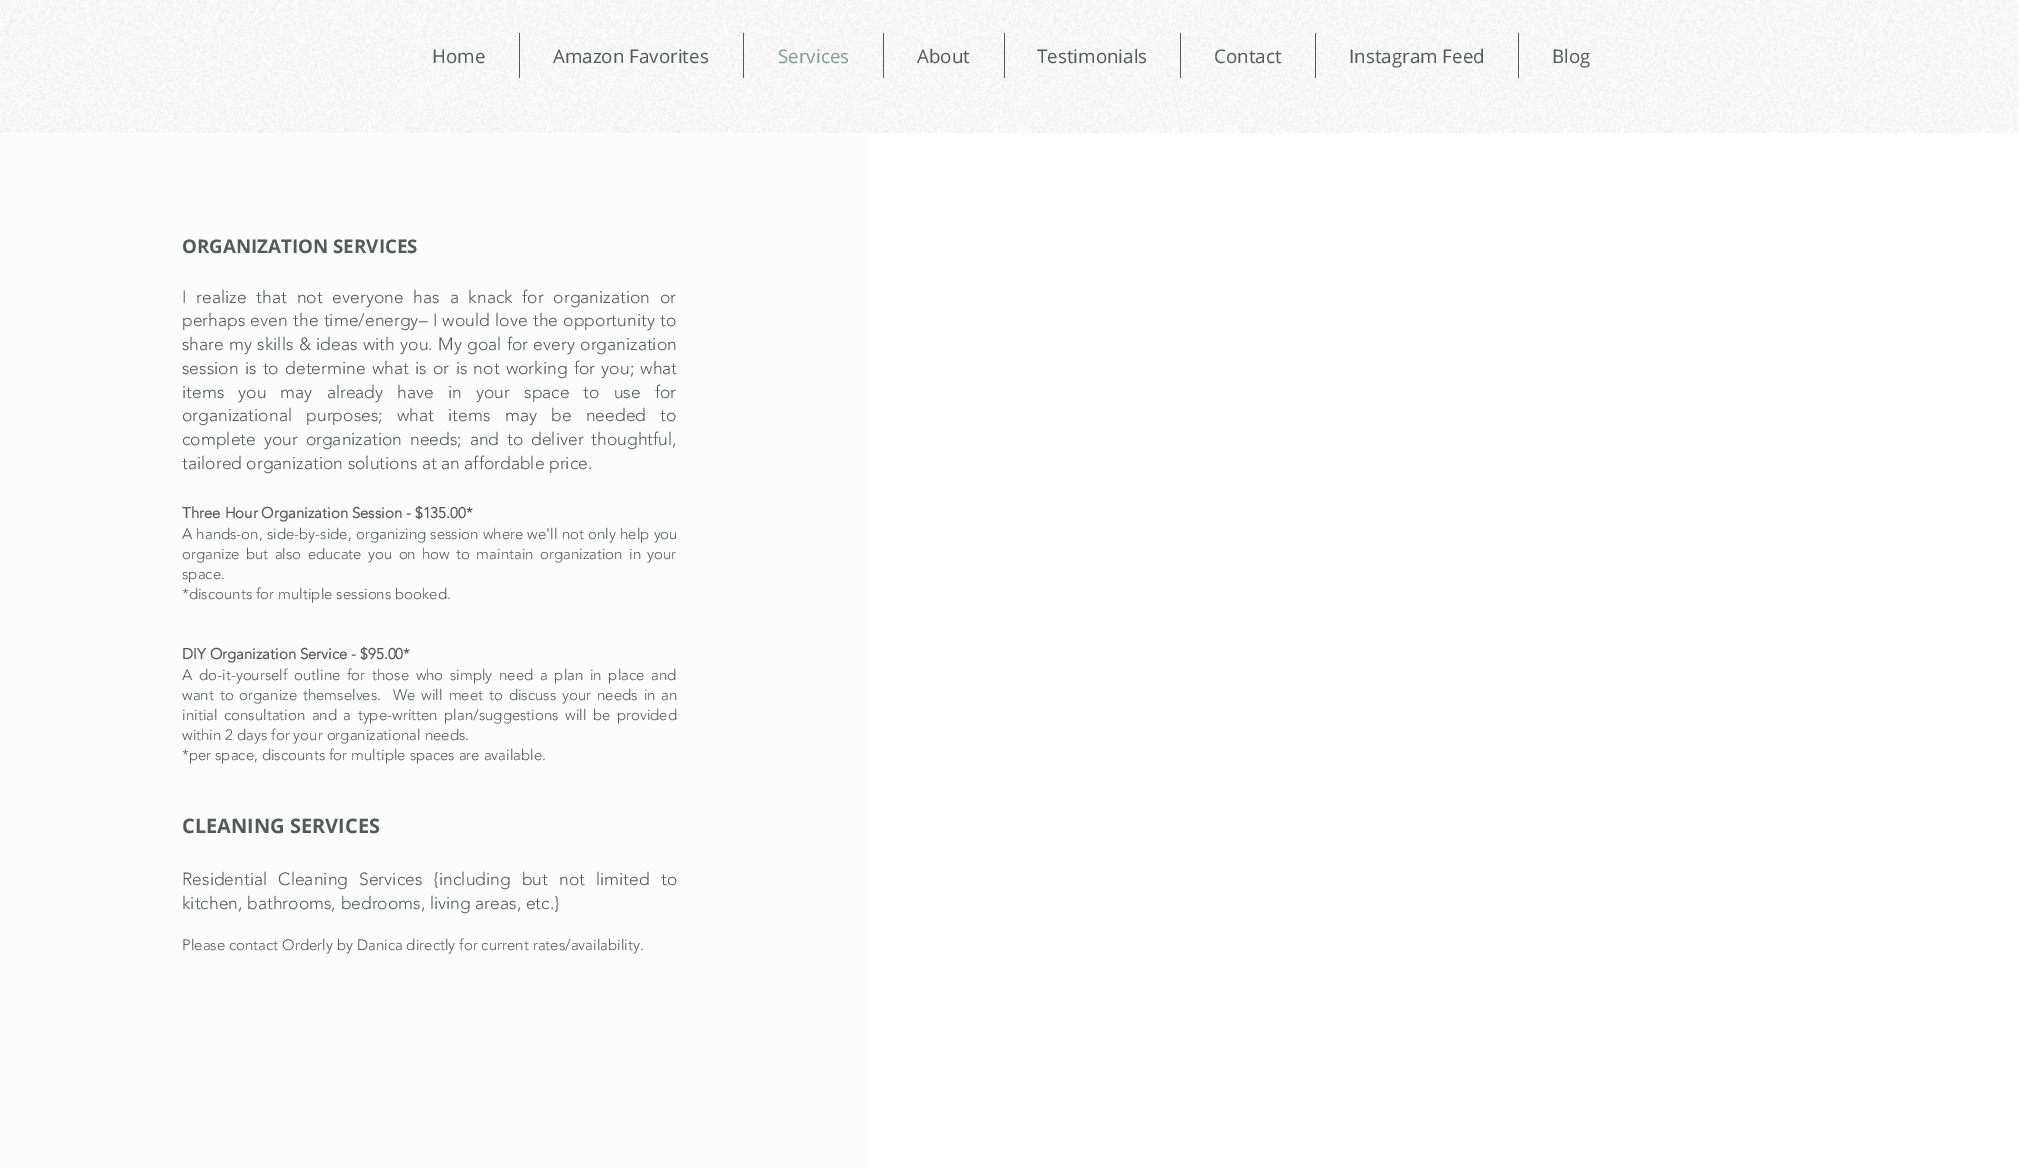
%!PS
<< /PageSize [2019 1169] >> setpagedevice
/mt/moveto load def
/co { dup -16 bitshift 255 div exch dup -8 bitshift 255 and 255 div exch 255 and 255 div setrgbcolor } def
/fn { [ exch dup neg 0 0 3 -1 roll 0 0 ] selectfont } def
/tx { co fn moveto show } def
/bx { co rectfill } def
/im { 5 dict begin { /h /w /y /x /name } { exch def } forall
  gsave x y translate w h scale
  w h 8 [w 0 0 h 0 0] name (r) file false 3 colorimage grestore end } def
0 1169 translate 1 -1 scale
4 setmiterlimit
0 0 2019 1169 16#FFFFFF bx
(media/1.raw) 0 0 2019 133 im
519 33 1 45 16#535B58 bx
743 33 1 45 16#535B58 bx
883 33 1 45 16#535B58 bx
1004 33 1 45 16#535B58 bx
1180 33 1 45 16#535B58 bx
1315 33 1 45 16#535B58 bx
1518 33 1 45 16#535B58 bx
0 134 868 1035 16#FCFCFC bx
(Home) 432 63 /OpenSans-Regular 18.75 16#535B58 tx
(Amazon Favorites) 553 63 /OpenSans-Regular 18.75 16#535B58 tx
(Services) 778 63 /OpenSans-Regular 18.75 16#809A91 tx
(About) 917 63 /OpenSans-Regular 18.75 16#535B58 tx
(Testimonials) 1037 63 /OpenSans-Regular 18.75 16#535B58 tx
(Contact) 1214 63 /OpenSans-Regular 18.75 16#535B58 tx
(Instagram Feed) 1349 63 /OpenSans-Regular 18.75 16#535B58 tx
(Blog) 1552 63 /OpenSans-Regular 18.75 16#535B58 tx
(ORGANIZATION SERVICES) 182 253 /OpenSans-Bold 18.75 16#535B58 tx
/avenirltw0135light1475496-Light 17.5 fn
182 303 mt 5.25 0 32 (I realize that not everyone has a knack for organization or) widthshow
182 326 mt .75 0 32 (perhaps even the time/energy– I would love the opportunity to) widthshow
182 350 mt .75 0 32 (share my skills & ideas with you. My goal for every organization) widthshow
182 374 mt 1.75 0 32 (session is to determine what is or is not working for you; what) widthshow
182 398 mt 9.5 0 32 (items you may already have in your space to use for) widthshow
182 421 mt 9.75 0 32 (organizational purposes; what items may be needed to) widthshow
182 445 mt 3.25 0 32 (complete your organization needs; and to) widthshow
531 445 mt 3.25 0 32 (deliver thoughtful,) widthshow
(tailored organization solutions at an affordable price.) 182 469 /avenirltw0135light1475496-Light 17.5 16#535B58 tx
(Three Hour Organization Session - $135.00*) 182 518 /avenirltw0135light1475496-Bold 15 16#535B58 tx
/avenirltw0135light1475496-Light 15 fn
182 539 mt .25 0 32 (A hands-on, side-by-side, organizing session where we'll not only help you) widthshow
182 559 mt 2.4 0 32 (organize but also educate you on how to maintain organization in your) widthshow
(space.) 182 579 /avenirltw0135light1475496-Light 15 16#535B58 tx
(*discounts for multiple sessions booked.) 182 599 /avenirltw0135light1475496-Light 15 16#535B58 tx
(DIY Organization Service - $95.00*) 182 659 /avenirltw0135light1475496-Bold 15 16#535B58 tx
/avenirltw0135light1475496-Light 15 fn
182 680 mt 2.75 0 32 (A do-it-yourself outline for those who simply need a plan in place and) widthshow
182 700 mt 2 0 32 (want to organize themselves.  We will meet to discuss your needs in an) widthshow
182 720 mt 2.5 0 32 (initial consultation and a type-written plan/suggestions will be provided) widthshow
(within 2 days for your organizational needs.) 182 740 /avenirltw0135light1475496-Light 15 16#535B58 tx
(*per space, discounts for multiple spaces are available.) 182 760 /avenirltw0135light1475496-Light 15 16#535B58 tx
(CLEANING SERVICES) 182 833 /OpenSans-Bold 20 16#535B58 tx
/avenirltw0135light1475496-Light 17.5 fn
182 885 mt 6.5 0 32 (Residential Cleaning Services {including but not limited to) widthshow
(kitchen, bathrooms, bedrooms, living areas, etc.}) 182 909 /avenirltw0135light1475496-Light 17.5 16#535B58 tx
(Please contact Orderly by Danica directly for current rates/availability.) 182 950 /avenirltw0135light1475496-Light 15 16#535B58 tx
showpage
